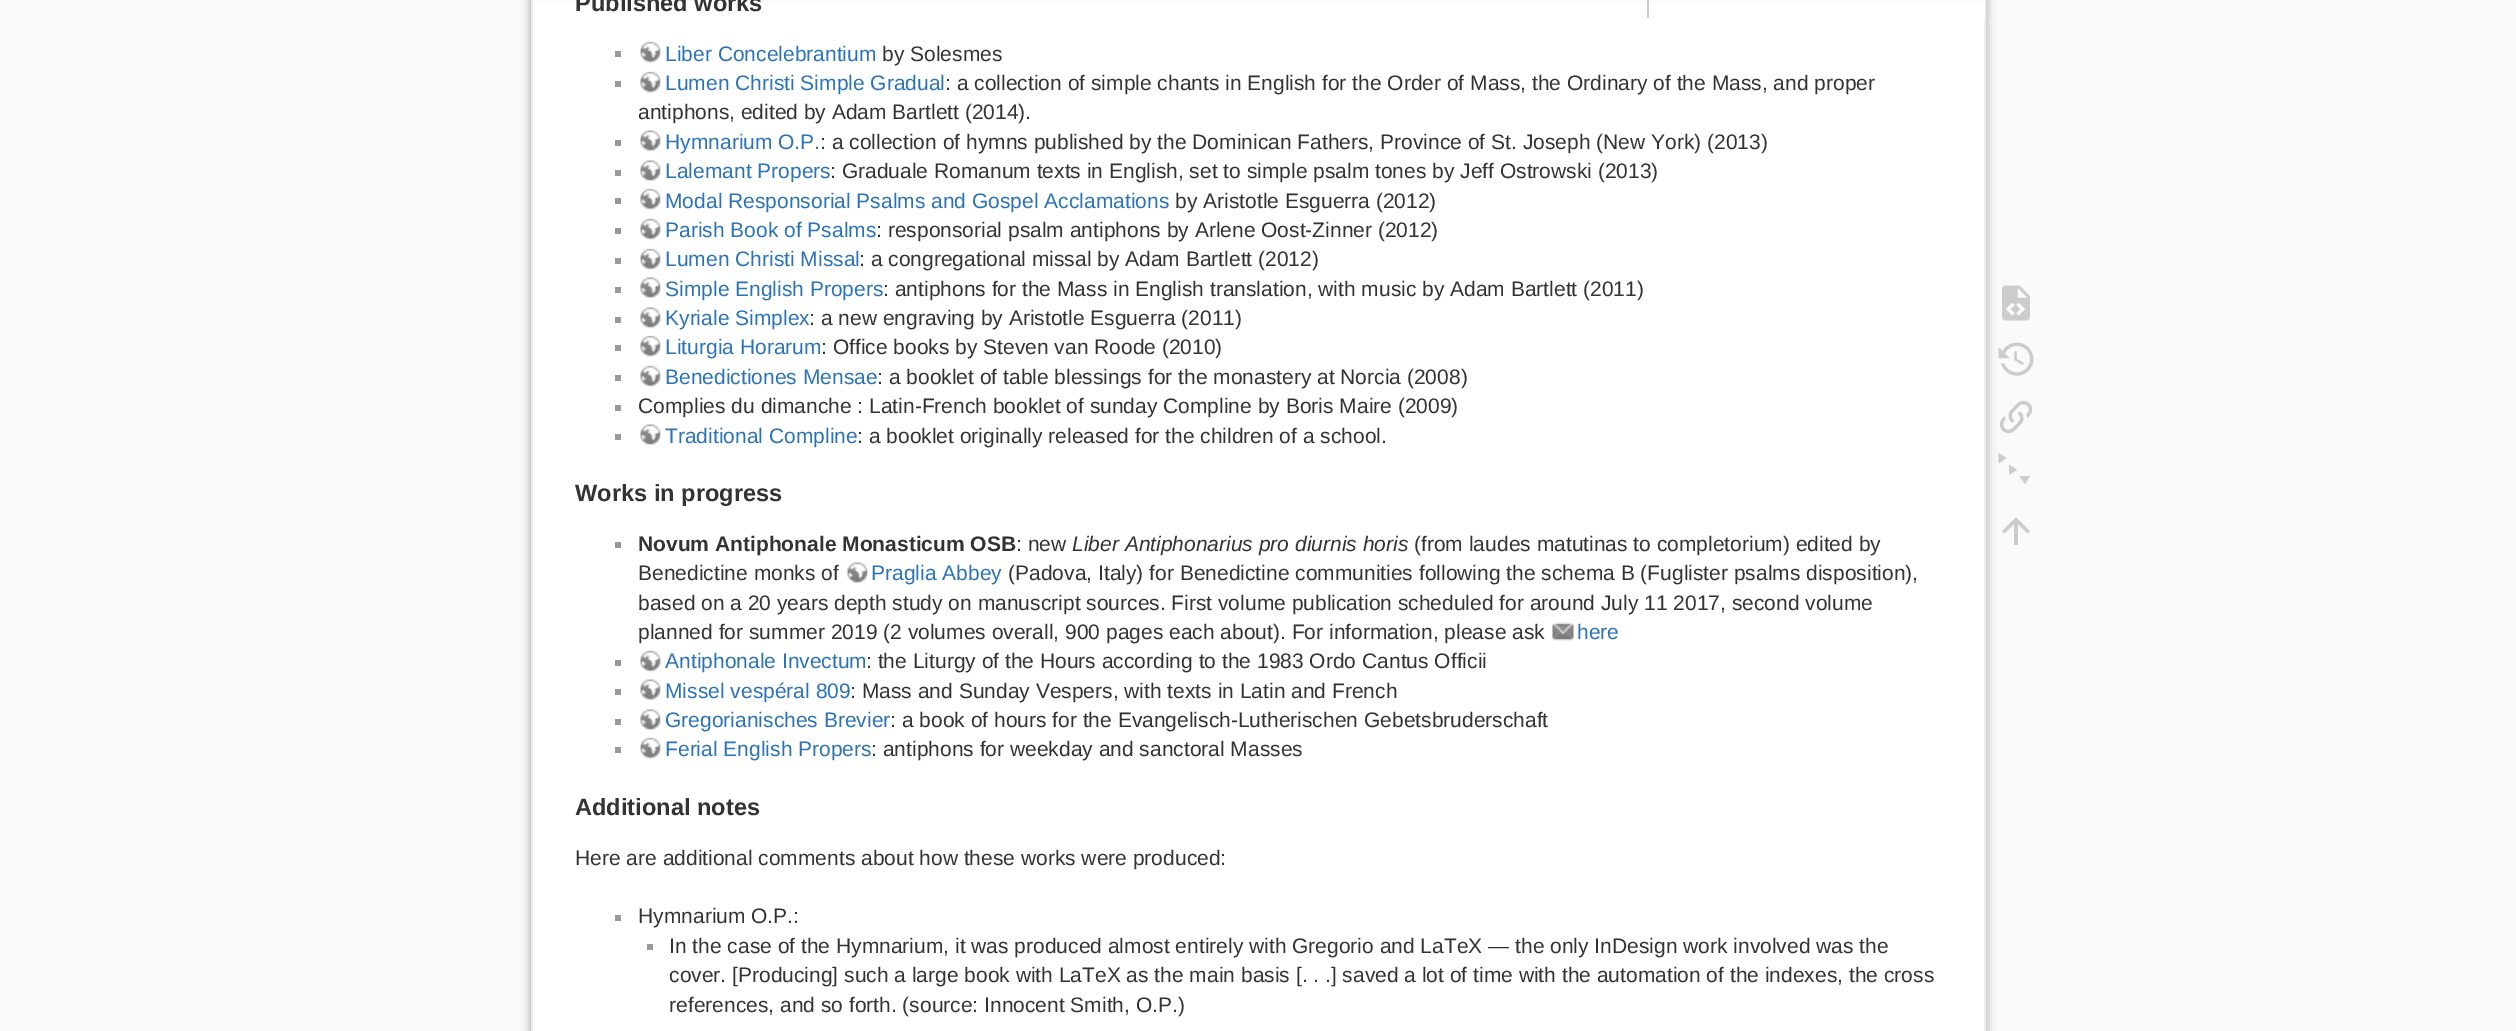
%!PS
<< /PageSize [2516 1031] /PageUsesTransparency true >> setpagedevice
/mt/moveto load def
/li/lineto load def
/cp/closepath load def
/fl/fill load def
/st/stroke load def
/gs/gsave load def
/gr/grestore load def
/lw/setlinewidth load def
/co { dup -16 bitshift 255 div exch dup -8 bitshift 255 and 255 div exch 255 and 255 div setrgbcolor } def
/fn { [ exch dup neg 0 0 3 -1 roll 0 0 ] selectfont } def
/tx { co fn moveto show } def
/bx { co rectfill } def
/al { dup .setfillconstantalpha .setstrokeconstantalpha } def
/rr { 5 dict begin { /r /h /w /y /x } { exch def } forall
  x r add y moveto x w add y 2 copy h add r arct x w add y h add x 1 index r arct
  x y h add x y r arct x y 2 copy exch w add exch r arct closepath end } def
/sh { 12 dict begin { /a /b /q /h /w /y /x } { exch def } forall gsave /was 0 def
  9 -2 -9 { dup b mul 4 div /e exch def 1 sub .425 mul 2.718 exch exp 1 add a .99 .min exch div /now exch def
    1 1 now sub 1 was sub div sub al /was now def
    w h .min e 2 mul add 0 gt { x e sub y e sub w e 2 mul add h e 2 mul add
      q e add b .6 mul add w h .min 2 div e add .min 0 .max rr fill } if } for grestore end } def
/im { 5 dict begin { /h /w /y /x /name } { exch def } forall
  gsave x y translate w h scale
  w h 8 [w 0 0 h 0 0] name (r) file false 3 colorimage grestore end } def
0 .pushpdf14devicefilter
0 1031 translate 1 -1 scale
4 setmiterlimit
0 0 2516 1031 16#FBFAF9 bx
16#999999 co
531 -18 1455 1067 3 5 1 sh
16#FFFFFF co
532 -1 mt 1985 -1 li 1985 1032 li 532 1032 li cp gs fl gr
16#EEEEEE co
2 lw
st
1984 0 1 18 16#FFFFFF bx
1647 0 2 18 16#CCCCCC bx
615 51 6 6 16#999999 bx
(media/1.raw) 640 41 21 23 im
615 81 6 6 16#999999 bx
(media/1.raw) 640 71 21 23 im
615 140 6 6 16#999999 bx
(media/2.raw) 640 130 21 22 im
615 170 6 6 16#999999 bx
(media/2.raw) 640 160 21 22 im
615 198 6 6 16#999999 bx
(media/1.raw) 640 188 21 23 im
615 228 6 6 16#999999 bx
(media/1.raw) 640 218 21 23 im
615 258 6 6 16#999999 bx
(media/1.raw) 640 248 21 23 im
615 287 6 6 16#999999 bx
(media/2.raw) 640 277 21 22 im
615 317 6 6 16#999999 bx
(media/2.raw) 640 307 21 22 im
615 345 6 6 16#999999 bx
(media/1.raw) 640 335 21 23 im
615 375 6 6 16#999999 bx
(media/1.raw) 640 365 21 23 im
615 405 6 6 16#999999 bx
615 434 6 6 16#999999 bx
(media/2.raw) 640 424 21 22 im
615 542 6 6 16#999999 bx
(media/3.raw) 847 562 21 22 im
(media/4.raw) 1552 622 22 19 im
615 660 6 6 16#999999 bx
(media/1.raw) 640 650 21 23 im
615 689 6 6 16#999999 bx
(media/2.raw) 640 679 21 22 im
615 719 6 6 16#999999 bx
(media/2.raw) 640 709 21 22 im
615 747 6 6 16#999999 bx
(media/1.raw) 640 737 21 23 im
615 915 6 6 16#999999 bx
647 944 6 6 16#999999 bx
(media/5.raw) 2002 285 28 36 im
(media/6.raw) 1998 342 36 34 im
(media/7.raw) 1999 400 34 34 im
16#CCCCCC co
1998.5 453 mt 2006.5 458 li 1998.5 463.5 li cp 2009 464.5 mt 2017 470 li 2009 475 li cp 2019.5 476 mt 2030 476 li 2025 484 li cp fl
2018 545 mt 2014 545 li 2014 524 li 2004.5 533.5 li 2002 531 li 2016 517.5 li 2030 531 li 2027.5 533.5 li 2018 524 li cp fl
(Published works) 575 11 /LiberationSans-Bold 23.6 16#333333 tx
(Liber Concelebrantium) 665 61 /LiberationSans-Regular 21 16#2B73B7 tx
(by Solesmes) 882 61 /LiberationSans-Regular 21 16#333333 tx
(Lumen Christi Simple Gradual) 665 90 /LiberationSans-Regular 21 16#2B73B7 tx
(: a collection of simple chants in English for the Order of Mass, the Ordinary of the Mass, and proper) 945 90 /LiberationSans-Regular 21 16#333333 tx
(antiphons, edited by Adam Bartlett \(2014\).) 638 119 /LiberationSans-Regular 21 16#333333 tx
(Hymnarium O.P.) 665 149 /LiberationSans-Regular 21 16#2B73B7 tx
(: a collection of hymns published by the Dominican Fathers, Province of St. Joseph \(New York\) \(2013\)) 820 149 /LiberationSans-Regular 21 16#333333 tx
(Lalemant Propers) 665 178 /LiberationSans-Regular 21 16#2B73B7 tx
(: Graduale Romanum texts in English, set to simple psalm tones by Jeff Ostrowski \(2013\)) 830 178 /LiberationSans-Regular 21 16#333333 tx
(Modal Responsorial Psalms and Gospel Acclamations) 665 208 /LiberationSans-Regular 21 16#2B73B7 tx
(by Aristotle Esguerra \(2012\)) 1175 208 /LiberationSans-Regular 21 16#333333 tx
(Parish Book of Psalms) 665 237 /LiberationSans-Regular 21 16#2B73B7 tx
(: responsorial psalm antiphons by Arlene Oost-Zinner \(2012\)) 876 237 /LiberationSans-Regular 21 16#333333 tx
(Lumen Christi Missal) 665 266 /LiberationSans-Regular 21 16#2B73B7 tx
(: a congregational missal by Adam Bartlett \(2012\)) 859 266 /LiberationSans-Regular 21 16#333333 tx
(Simple English Propers) 665 296 /LiberationSans-Regular 21 16#2B73B7 tx
(: antiphons for the Mass in English translation, with music by Adam Bartlett \(2011\)) 883 296 /LiberationSans-Regular 21 16#333333 tx
(Kyriale Simplex) 665 325 /LiberationSans-Regular 21 16#2B73B7 tx
(: a new engraving by Aristotle Esguerra \(2011\)) 809 325 /LiberationSans-Regular 21 16#333333 tx
(Liturgia Horarum) 665 354 /LiberationSans-Regular 21 16#2B73B7 tx
(: Office books by Steven van Roode \(2010\)) 821 354 /LiberationSans-Regular 21 16#333333 tx
(Benedictiones Mensae) 665 384 /LiberationSans-Regular 21 16#2B73B7 tx
(: a booklet of table blessings for the monastery at Norcia \(2008\)) 877 384 /LiberationSans-Regular 21 16#333333 tx
(Complies du dimanche : Latin-French booklet of sunday Compline by Boris Maire \(2009\)) 638 413 /LiberationSans-Regular 21 16#333333 tx
(Traditional Compline) 665 443 /LiberationSans-Regular 21 16#2B73B7 tx
(: a booklet originally released for the children of a school.) 857 443 /LiberationSans-Regular 21 16#333333 tx
(Works in progress) 575 501 /LiberationSans-Bold 23.6 16#333333 tx
(Novum Antiphonale Monasticum OSB) 638 551 /LiberationSans-Bold 21 16#333333 tx
(: new) 1016 551 /LiberationSans-Regular 21 16#333333 tx
(Liber Antiphonarius pro diurnis horis) 1072 551 /LiberationSans-Italic 21 16#333333 tx
(\(from laudes matutinas to completorium\) edited by) 1414 551 /LiberationSans-Regular 21 16#333333 tx
(Benedictine monks of) 638 580 /LiberationSans-Regular 21 16#333333 tx
(Praglia Abbey) 871 580 /LiberationSans-Regular 21 16#2B73B7 tx
(\(Padova, Italy\) for Benedictine communities following the schema B \(Fuglister psalms disposition\),) 1008 580 /LiberationSans-Regular 21 16#333333 tx
(based on a 20 years depth study on manuscript sources. First volume publication scheduled for around July 11 2017, second volume) 638 610 /LiberationSans-Regular 21 16#333333 tx
(planned for summer 2019 \(2 volumes overall, 900 pages each about\). For information, please ask) 638 639 /LiberationSans-Regular 21 16#333333 tx
(here) 1577 639 /LiberationSans-Regular 21 16#2B73B7 tx
(Antiphonale Invectum) 665 668 /LiberationSans-Regular 21 16#2B73B7 tx
(: the Liturgy of the Hours according to the 1983 Ordo Cantus Officii) 866 668 /LiberationSans-Regular 21 16#333333 tx
(Missel vespéral 809) 665 698 /LiberationSans-Regular 21 16#2B73B7 tx
(: Mass and Sunday Vespers, with texts in Latin and French) 850 698 /LiberationSans-Regular 21 16#333333 tx
(Gregorianisches Brevier) 665 727 /LiberationSans-Regular 21 16#2B73B7 tx
(: a book of hours for the Evangelisch-Lutherischen Gebetsbruderschaft) 890 727 /LiberationSans-Regular 21 16#333333 tx
(Ferial English Propers) 665 756 /LiberationSans-Regular 21 16#2B73B7 tx
(: antiphons for weekday and sanctoral Masses) 871 756 /LiberationSans-Regular 21 16#333333 tx
(Additional notes) 575 815 /LiberationSans-Bold 23.6 16#333333 tx
(Here are additional comments about how these works were produced:) 575 865 /LiberationSans-Regular 21 16#333333 tx
(Hymnarium O.P.:) 638 923 /LiberationSans-Regular 21 16#333333 tx
(In the case of the Hymnarium, it was produced almost entirely with Gregorio and LaTeX — the only InDesign work involved was the) 669 953 /LiberationSans-Regular 21 16#333333 tx
(cover. [Producing] such a large book with LaTeX as the main basis [. . .] saved a lot of time with the automation of the indexes, the cross) 669 982 /LiberationSans-Regular 21 16#333333 tx
(references, and so forth. \(source: Innocent Smith, O.P.\)) 669 1012 /LiberationSans-Regular 21 16#333333 tx
.poppdf14devicefilter showpage
